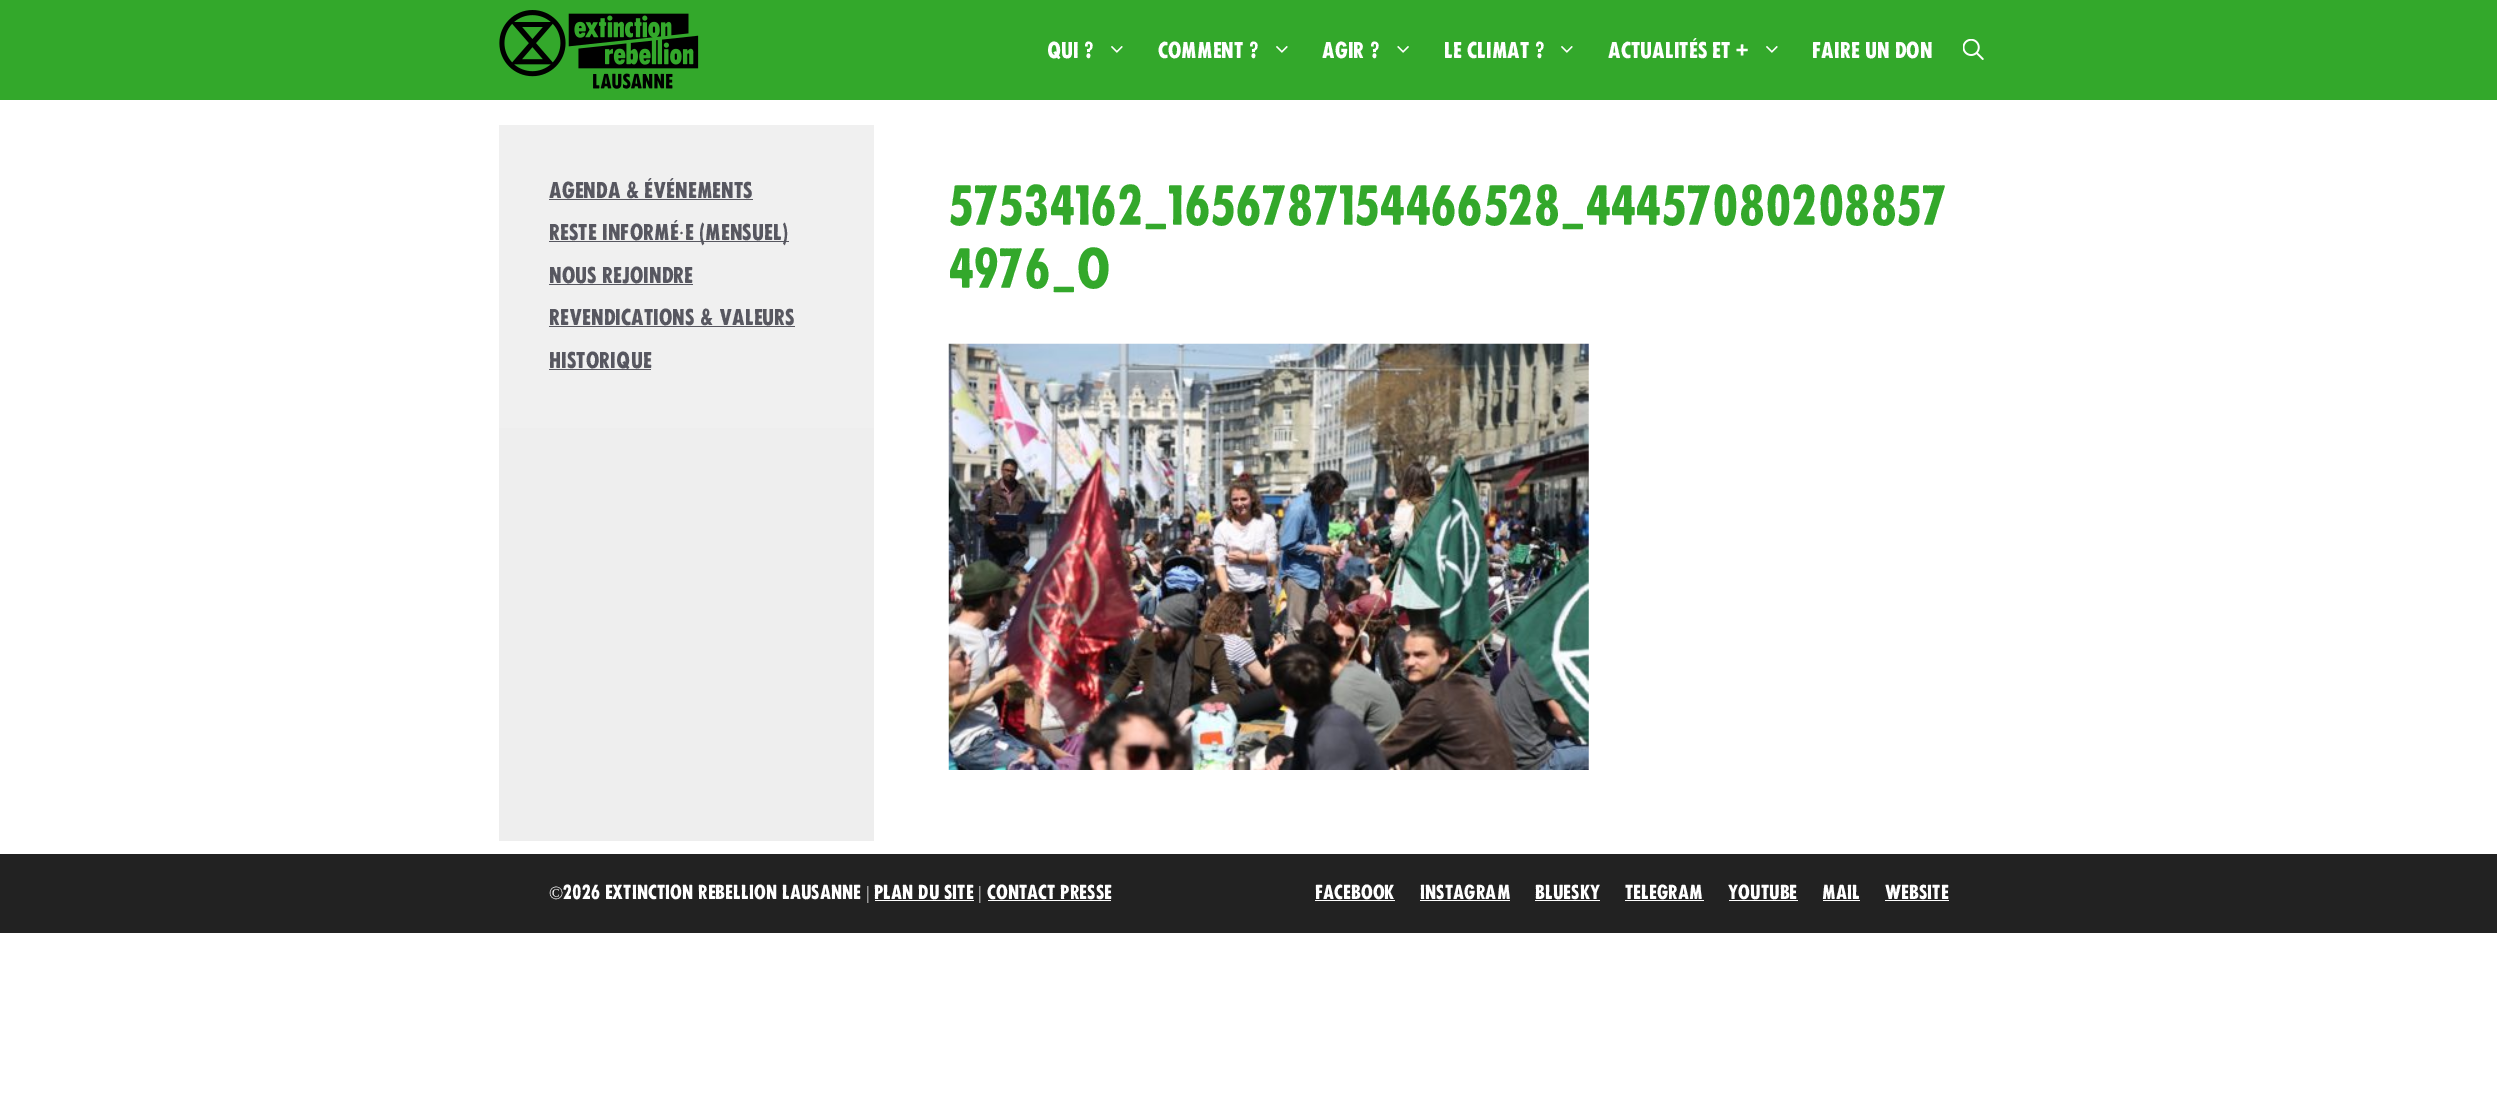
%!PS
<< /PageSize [2497 1116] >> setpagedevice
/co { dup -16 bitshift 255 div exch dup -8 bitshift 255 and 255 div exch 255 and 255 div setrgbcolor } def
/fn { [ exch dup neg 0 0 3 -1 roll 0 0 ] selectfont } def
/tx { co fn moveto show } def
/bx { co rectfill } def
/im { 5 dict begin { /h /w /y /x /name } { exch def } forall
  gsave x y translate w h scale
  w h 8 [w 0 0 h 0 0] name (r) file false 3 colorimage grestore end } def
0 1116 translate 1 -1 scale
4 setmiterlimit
0 0 2497 1116 16#FFFFFF bx
0 0 2497 100 16#33A82B bx
(media/1.raw) 499 10 200 79 im
(media/2.raw) 1111 46 12 7 im
(media/2.raw) 1276 46 12 7 im
(media/3.raw) 1397 46 12 7 im
(media/2.raw) 1561 46 12 7 im
(media/2.raw) 1766 46 12 7 im
(media/4.raw) 1963 39 21 21 im
499 428 375 413 16#EEEEEE bx
499 125 375 303 16#F0F0F0 bx
549 199 204 1 16#575760 bx
549 241 240 1 16#575760 bx
549 284 144 1 16#575760 bx
549 326 246 1 16#575760 bx
549 369 102 1 16#575760 bx
(media/5.raw) 948 343 641 427 im
0 854 2497 79 16#222222 bx
875 900 99 1 16#FFFFFF bx
988 900 123 1 16#FFFFFF bx
1315 900 80 1 16#FFFFFF bx
1420 900 90 1 16#FFFFFF bx
1535 900 65 1 16#FFFFFF bx
1625 900 79 1 16#FFFFFF bx
1729 900 69 1 16#FFFFFF bx
1823 900 37 1 16#FFFFFF bx
1885 900 64 1 16#FFFFFF bx
(Qui ?) 1047 58 /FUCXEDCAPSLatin-Regular 21.25 16#FFFFFF tx
(Comment ?) 1158 58 /FUCXEDCAPSLatin-Regular 21.25 16#FFFFFF tx
(Agir ?) 1322 58 /FUCXEDCAPSLatin-Regular 21.25 16#FFFFFF tx
(Le climat ?) 1444 58 /FUCXEDCAPSLatin-Regular 21.25 16#FFFFFF tx
(Actualités et +) 1608 58 /FUCXEDCAPSLatin-Regular 21.25 16#FFFFFF tx
(Faire un don) 1812 58 /FUCXEDCAPSLatin-Regular 21.25 16#FFFFFF tx
(Agenda & Événements) 549 198 /FUCXEDCAPSLatin-Regular 21.25 16#575760 tx
(Reste informé) 549 240 /FUCXEDCAPSLatin-Regular 21.25 16#575760 tx
(·) 678 240 /LiberationSerif-Regular 21.25 16#575760 tx
(e \(mensuel\)) 685 240 /FUCXEDCAPSLatin-Regular 21.25 16#575760 tx
(Nous rejoindre) 549 283 /FUCXEDCAPSLatin-Regular 21.25 16#575760 tx
(Revendications & valeurs) 549 325 /FUCXEDCAPSLatin-Regular 21.25 16#575760 tx
(Historique) 549 368 /FUCXEDCAPSLatin-Regular 21.25 16#575760 tx
(57534162_1656787154466528_44457080208857) 949 225 /FUCXEDCAPSLatin-Regular 52.5 16#33A82B tx
(4976_o) 949 288 /FUCXEDCAPSLatin-Regular 52.5 16#33A82B tx
(©) 549 899 /LiberationSerif-Regular 18.75 16#FFFFFF tx
(2026 EXTINCTION REBELLION Lausanne) 563 899 /FUCXEDCAPSLatin-Regular 18.75 16#FFFFFF tx
(|) 866 899 /LiberationSerif-Regular 18.75 16#FFFFFF tx
(Plan du site) 874 899 /FUCXEDCAPSLatin-Regular 18.75 16#FFFFFF tx
(|) 978 899 /LiberationSerif-Regular 18.75 16#FFFFFF tx
(Contact Presse) 987 899 /FUCXEDCAPSLatin-Regular 18.75 16#FFFFFF tx
(Facebook) 1315 899 /FUCXEDCAPSLatin-Regular 18.75 16#FFFFFF tx
(Instagram) 1420 899 /FUCXEDCAPSLatin-Regular 18.75 16#FFFFFF tx
(Bluesky) 1535 899 /FUCXEDCAPSLatin-Regular 18.75 16#FFFFFF tx
(Telegram) 1625 899 /FUCXEDCAPSLatin-Regular 18.75 16#FFFFFF tx
(Youtube) 1728 899 /FUCXEDCAPSLatin-Regular 18.75 16#FFFFFF tx
(Mail) 1822 899 /FUCXEDCAPSLatin-Regular 18.75 16#FFFFFF tx
(Website) 1885 899 /FUCXEDCAPSLatin-Regular 18.75 16#FFFFFF tx
showpage
